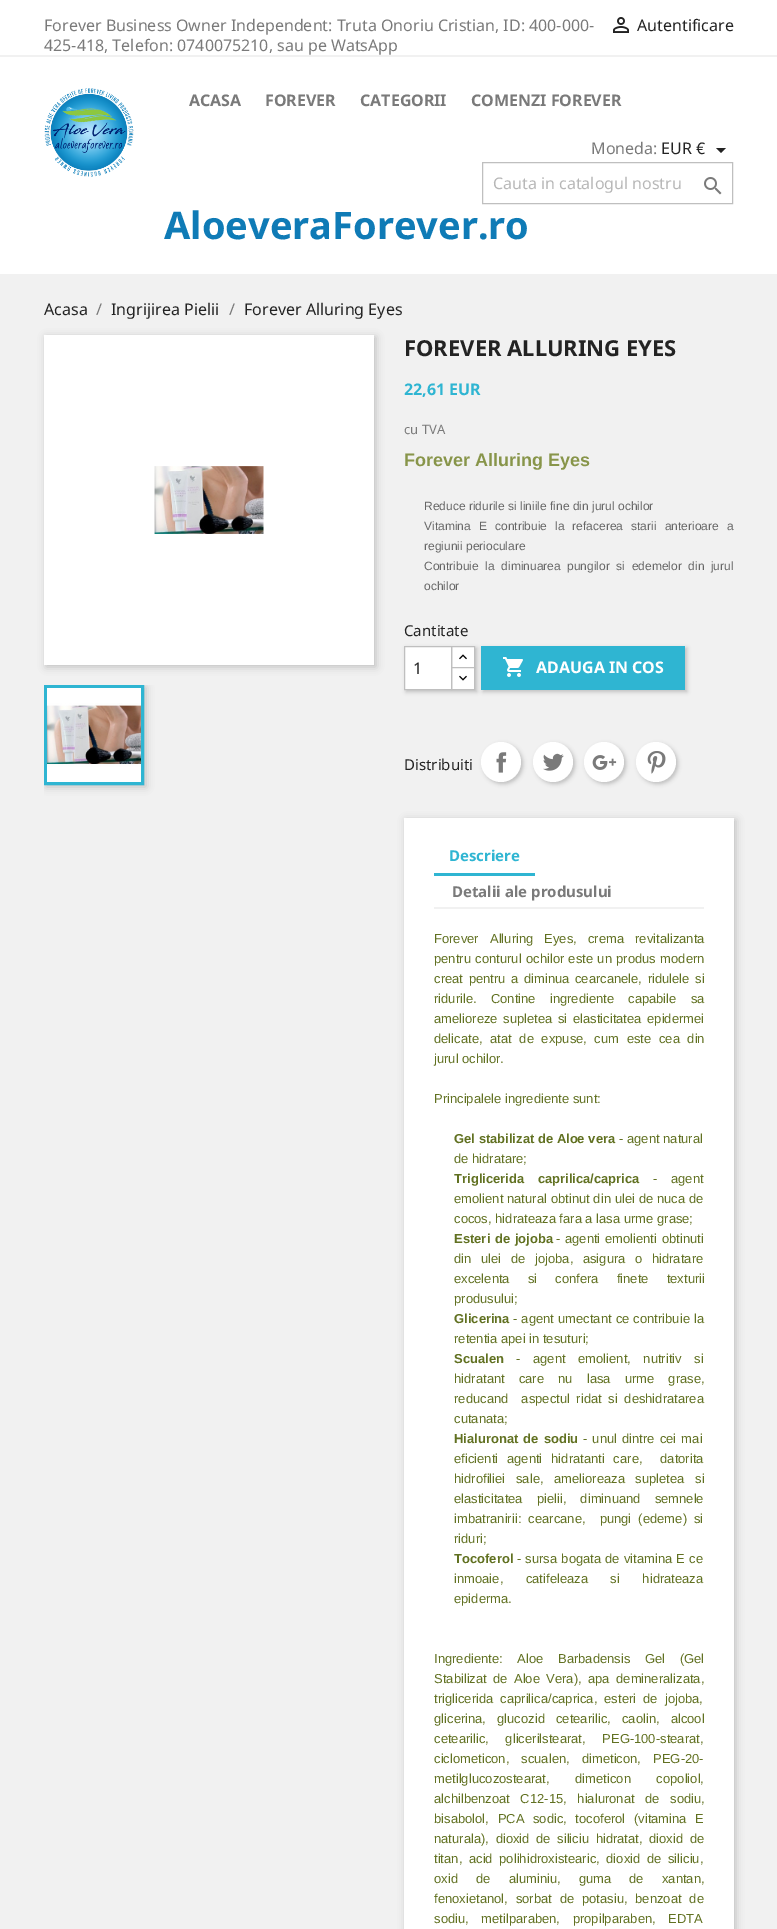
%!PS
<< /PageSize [777 1929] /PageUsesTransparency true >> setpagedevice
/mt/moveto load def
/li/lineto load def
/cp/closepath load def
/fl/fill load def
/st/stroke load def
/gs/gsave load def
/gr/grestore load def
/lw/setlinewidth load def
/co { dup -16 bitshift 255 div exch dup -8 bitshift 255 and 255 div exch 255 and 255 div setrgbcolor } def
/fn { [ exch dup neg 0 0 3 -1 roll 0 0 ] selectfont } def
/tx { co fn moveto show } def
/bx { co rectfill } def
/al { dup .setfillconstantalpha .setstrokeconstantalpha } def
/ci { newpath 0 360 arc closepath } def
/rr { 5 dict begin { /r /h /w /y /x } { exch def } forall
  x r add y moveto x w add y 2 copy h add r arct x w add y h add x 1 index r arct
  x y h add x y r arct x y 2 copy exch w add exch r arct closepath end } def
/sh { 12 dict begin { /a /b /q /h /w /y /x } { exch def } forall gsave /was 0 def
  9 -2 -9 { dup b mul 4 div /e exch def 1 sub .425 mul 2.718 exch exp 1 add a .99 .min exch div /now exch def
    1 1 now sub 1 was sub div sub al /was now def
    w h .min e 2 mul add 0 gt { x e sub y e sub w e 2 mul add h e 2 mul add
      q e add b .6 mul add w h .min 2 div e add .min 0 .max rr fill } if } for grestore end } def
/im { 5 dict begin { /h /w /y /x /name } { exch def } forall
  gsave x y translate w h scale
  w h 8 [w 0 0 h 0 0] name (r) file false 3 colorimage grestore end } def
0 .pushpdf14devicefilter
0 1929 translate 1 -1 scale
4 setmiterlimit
0 0 777 1929 16#FFFFFF bx
0 55 777 2 16#F1F1F1 bx
(media/1.raw) 613 17 16 16 im
(media/2.raw) 44 88 90 89 im
16#232323 co
716 148 mt 726 148 li 721 153 li cp fl
16#BFBFBF co
482.5 162.5 250 41 rectstroke
(media/3.raw) 704 177 18 18 im
0 274 777 1655 16#F1F1F1 bx
16#000000 co
46 337 330 330 0 4 .2 sh
44 335 330 330 16#FFFFFF bx
(media/4.raw) 154 466 110 68 im
gs
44 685 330 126 rectclip
16#000000 co
46 687 100 100 0 4 .2 sh
gr
16#2FB5D2 co
3 lw
45.5 686.5 97 97 rectstroke
(media/5.raw) 47 688 94 94 im
16#000000 co
483 648 204 44 0 2 .2 sh
481 646 204 44 16#2FB5D2 bx
16#000000 co
406 648 71 44 0 2 .2 sh
452 647 22 20 16#FFFFFF bx
16#BFBFBF co
1 lw
451.5 646.5 23 22 rectstroke
16#FFFFFF co
451.5 667.5 mt 474.5 667.5 li 474.5 689.5 li 451.5 689.5 li cp gs fl gr
16#BFBFBF co
st
16#FFFFFF co
404.5 646.5 mt 451.5 646.5 li 451.5 689.5 li 404.5 689.5 li cp gs fl gr
16#BFBFBF co
st
(media/6.raw) 459 654 8 6 im
(media/7.raw) 459 675 8 6 im
(media/8.raw) 503 657 20 20 im
16#000000 co
483 744 40 40 20 2 .2 sh
16#FFFFFF co
501 762 20 ci fl
(media/9.raw) 496 752 11 21 im
16#000000 co
535 744 40 40 20 2 .2 sh
16#FFFFFF co
553 762 20 ci fl
(media/10.raw) 543 753 21 18 im
16#000000 co
586 744 40 40 20 2 .2 sh
16#FFFFFF co
604 762 20 ci fl
(media/11.raw) 592 755 25 15 im
16#000000 co
638 744 40 40 20 2 .2 sh
16#FFFFFF co
656 762 20 ci fl
(media/12.raw) 647 751 19 23 im
16#000000 co
406 820 330 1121 0 4 .2 sh
404 818 330 1111 16#FFFFFF bx
434 907 270 2 16#F1F1F1 bx
434 873 101 3 16#2FB5D2 bx
(Forever Business Owner Independent: Truta Onoriu Cristian, ID: 400-000-) 44 31 /NotoSans-Regular 16 16#7A7A7A tx
(425-418, Telefon: 0740075210, sau pe WatsApp) 44 51 /NotoSans-Regular 16 16#7A7A7A tx
(Autentificare) 637 31 /NotoSans-Regular 16 16#232323 tx
(ACASA) 189 106 /NotoSans-Bold 16 16#7A7A7A tx
(FOREVER) 265 106 /NotoSans-Bold 16 16#7A7A7A tx
(CATEGORII) 360 106 /NotoSans-Bold 16 16#7A7A7A tx
(COMENZI FOREVER) 471 106 /NotoSans-Bold 16 16#7A7A7A tx
(Moneda:) 591 154 /NotoSans-Regular 16 16#7A7A7A tx
(EUR €) 661 154 /NotoSans-Regular 16 16#232323 tx
(Cauta in catalogul nostru) 493 189 /NotoSans-Regular 16 16#B7B7B7 tx
(AloeveraForever.ro) 164 239 /NotoSans-Bold 38 16#0F7BB6 tx
(Acasa) 44 315 /NotoSans-Regular 16 16#232323 tx
(/) 96 315 /NotoSans-Regular 16 16#7A7A7A tx
(Ingrijirea Pielii) 111 315 /NotoSans-Regular 16 16#232323 tx
(/) 229 315 /NotoSans-Regular 16 16#7A7A7A tx
(Forever Alluring Eyes) 244 315 /NotoSans-Regular 16 16#232323 tx
(FOREVER ALLURING EYES) 404 356 /NotoSans-Bold 22 16#232323 tx
(22,61 EUR) 404 395 /NotoSans-Bold 16 16#2FB5D2 tx
(cu TVA) 404 434 /NotoSans-Regular 13 16#7A7A7A tx
(Forever Alluring Eyes) 404 466 /LiberationSans-Bold 18 16#88954A tx
(Reduce ridurile si liniile fine din jurul ochilor) 424 510 /LiberationSans-Regular 12 16#666666 tx
424 530 mt 4.75 0 32 (Vitamina E contribuie la refacerea starii anterioare a) widthshow
(regiunii perioculare) 424 550 /LiberationSans-Regular 12 16#666666 tx
424 570 mt 3.25 0 32 (Contribuie la diminuarea pungilor si edemelor din jurul) widthshow
(ochilor) 424 590 /LiberationSans-Regular 12 16#666666 tx
(Cantitate) 404 636 /NotoSans-Regular 15 16#232323 tx
(1) 413 674 /NotoSans-Regular 16 16#232323 tx
(ADAUGA IN COS) 536 673 /NotoSans-Bold 16 16#FFFFFF tx
(Distribuiti) 404 770 /NotoSans-Regular 15 16#232323 tx
(Descriere) 449 861 /NotoSans-Bold 15 16#2FB5D2 tx
(Detalii ale produsului) 452 897 /NotoSans-Bold 15 16#7A7A7A tx
/LiberationSans-Regular 13 fn
16#617121 co
434 943 mt 7.5 0 32 (Forever Alluring Eyes, crema revitalizanta) widthshow
434 963 mt .75 0 32 (pentru conturul ochilor este un produs modern) widthshow
434 983 mt 2 0 32 (creat pentru a diminua cearcanele, ridulele si) widthshow
434 1003 mt 10.5 0 32 (ridurile. Contine ingrediente capabile sa) widthshow
434 1023 mt 2 0 32 (amelioreze supletea si elasticitatea epidermei) widthshow
434 1043 mt 4 0 32 (delicate, atat de expuse, cum este cea din) widthshow
(jurul ochilor.) 434 1063 /LiberationSans-Regular 13 16#617121 tx
(Principalele ingrediente sunt:) 434 1103 /LiberationSans-Regular 13 16#617121 tx
(Gel stabilizat de Aloe vera) 454 1143 /LiberationSans-Bold 13 16#617121 tx
(- agent natural) 619 1143 /LiberationSans-Regular 13 16#617121 tx
(de hidratare;) 454 1163 /LiberationSans-Regular 13 16#617121 tx
/LiberationSans-Bold 13 fn
454 1183 mt 10 0 32 (Triglicerida caprilica/caprica) widthshow
/LiberationSans-Regular 13 fn
653 1183 mt 10 0 32 (- agent) widthshow
454 1203 mt .25 0 32 (emolient natural obtinut din ulei de nuca de) widthshow
(cocos, hidrateaza fara a lasa urme grase;) 454 1223 /LiberationSans-Regular 13 16#617121 tx
/LiberationSans-Bold 13 fn
454 1243 mt 1 0 32 (Esteri de jojoba) widthshow
/LiberationSans-Regular 13 fn
556 1243 mt 1 0 32 (- agenti emolienti obtinuti) widthshow
454 1263 mt 6 0 32 (din ulei de jojoba, asigura o hidratare) widthshow
454 1283 mt 14.5 0 32 (excelenta si confera finete texturii) widthshow
(produsului;) 454 1303 /LiberationSans-Regular 13 16#617121 tx
(Glicerina) 454 1323 /LiberationSans-Bold 13 16#617121 tx
/LiberationSans-Regular 13 fn
513 1323 mt .5 0 32 (- agent umectant ce contribuie la) widthshow
(retentia apei in tesuturi;) 454 1343 /LiberationSans-Regular 13 16#617121 tx
(Scualen) 454 1363 /LiberationSans-Bold 13 16#617121 tx
/LiberationSans-Regular 13 fn
516 1363 mt 9 0 32 (- agent emolient, nutritiv si) widthshow
454 1383 mt 10.5 0 32 (hidratant care nu lasa urme grase,) widthshow
454 1403 mt 3 0 32 (reducand  aspectul ridat si deshidratarea) widthshow
(cutanata;) 454 1423 /LiberationSans-Regular 13 16#617121 tx
/LiberationSans-Bold 13 fn
454 1443 mt 1.5 0 32 (Hialuronat de sodiu) widthshow
/LiberationSans-Regular 13 fn
583 1443 mt 1.5 0 32 (- unul dintre cei mai) widthshow
454 1463 mt 5.25 0 32 (eficienti agenti hidratanti care,  datorita) widthshow
454 1483 mt 7 0 32 (hidrofiliei sale, amelioreaza supletea si) widthshow
454 1503 mt 10.5 0 32 (elasticitatea pielii, diminuand semnele) widthshow
454 1523 mt 3.5 0 32 (imbatranirii: cearcane,  pungi \(edeme\) si) widthshow
(riduri;) 454 1543 /LiberationSans-Regular 13 16#617121 tx
(Tocoferol) 454 1563 /LiberationSans-Bold 13 16#617121 tx
/LiberationSans-Regular 13 fn
517 1563 mt .5 0 32 (- sursa bogata de vitamina E ce) widthshow
454 1583 mt 19 0 32 (inmoaie, catifeleaza si hidrateaza) widthshow
(epiderma.) 454 1603 /LiberationSans-Regular 13 16#617121 tx
434 1663 mt 11 0 32 (Ingrediente: Aloe Barbadensis Gel \(Gel) widthshow
434 1683 mt 2.75 0 32 (Stabilizat de Aloe Vera\), apa demineralizata,) widthshow
434 1703 mt 3.5 0 32 (triglicerida caprilica/caprica, esteri de jojoba,) widthshow
434 1723 mt 7.5 0 32 (glicerina, glucozid cetearilic, caolin, alcool) widthshow
434 1743 mt 13 0 32 (cetearilic, glicerilstearat, PEG-100-stearat,) widthshow
434 1763 mt 8.5 0 32 (ciclometicon, scualen, dimeticon, PEG-20-) widthshow
434 1783 mt 22 0 32 (metilglucozostearat, dimeticon copoliol,) widthshow
434 1803 mt 7 0 32 (alchilbenzoat C12-15, hialuronat de sodiu,) widthshow
434 1823 mt 5 0 32 (bisabolol, PCA sodic, tocoferol \(vitamina E) widthshow
434 1843 mt 3 0 32 (naturala\), dioxid de siliciu hidratat, dioxid de) widthshow
434 1863 mt 3 0 32 (titan, acid polihidroxistearic, dioxid de siliciu,) widthshow
434 1883 mt 14.5 0 32 (oxid de aluminiu, guma de xantan,) widthshow
434 1903 mt 4.25 0 32 (fenoxietanol, sorbat de potasiu, benzoat de) widthshow
434 1923 mt 9 0 32 (sodiu, metilparaben, propilparaben, EDTA) widthshow
.poppdf14devicefilter showpage
